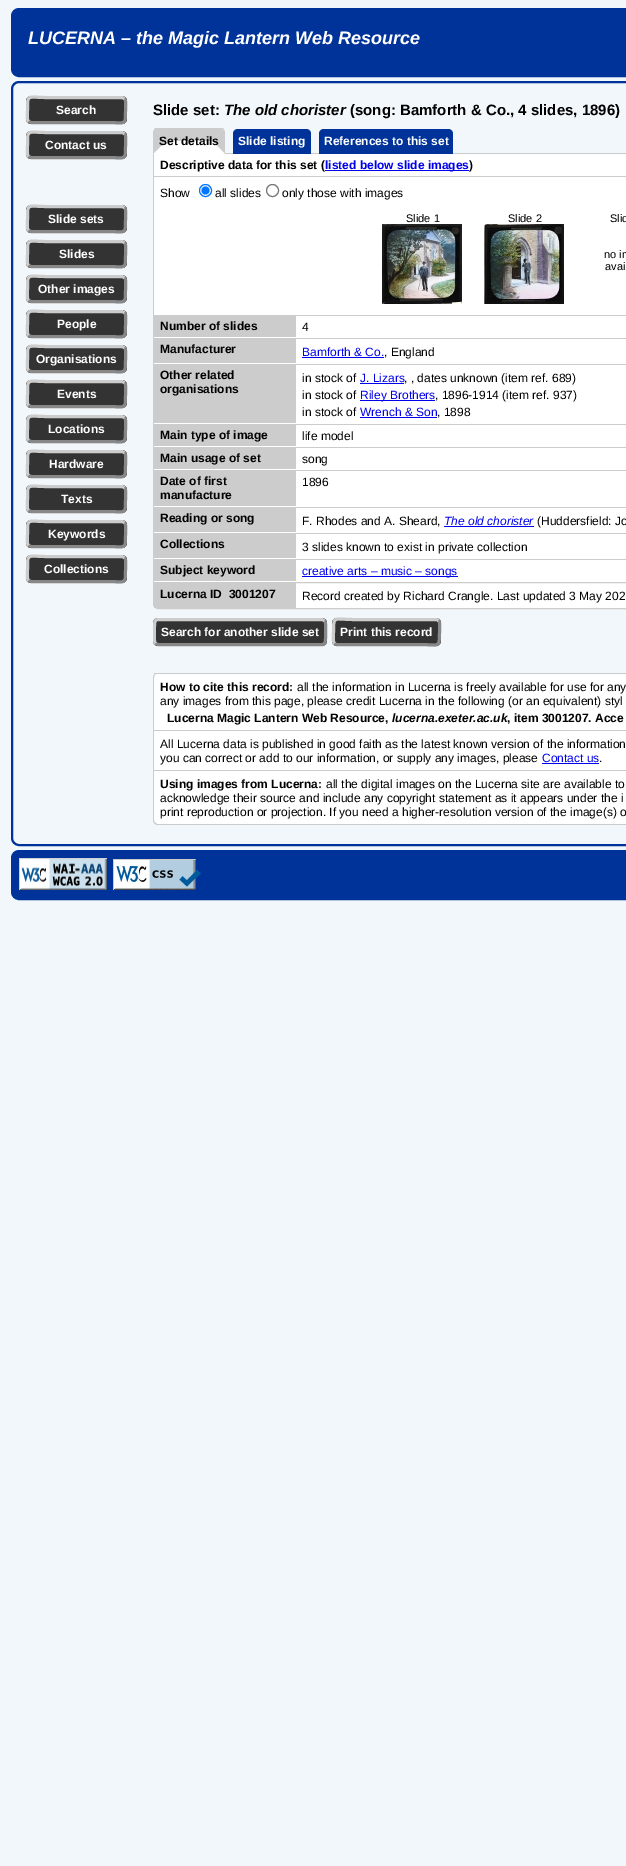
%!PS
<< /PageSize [626 1866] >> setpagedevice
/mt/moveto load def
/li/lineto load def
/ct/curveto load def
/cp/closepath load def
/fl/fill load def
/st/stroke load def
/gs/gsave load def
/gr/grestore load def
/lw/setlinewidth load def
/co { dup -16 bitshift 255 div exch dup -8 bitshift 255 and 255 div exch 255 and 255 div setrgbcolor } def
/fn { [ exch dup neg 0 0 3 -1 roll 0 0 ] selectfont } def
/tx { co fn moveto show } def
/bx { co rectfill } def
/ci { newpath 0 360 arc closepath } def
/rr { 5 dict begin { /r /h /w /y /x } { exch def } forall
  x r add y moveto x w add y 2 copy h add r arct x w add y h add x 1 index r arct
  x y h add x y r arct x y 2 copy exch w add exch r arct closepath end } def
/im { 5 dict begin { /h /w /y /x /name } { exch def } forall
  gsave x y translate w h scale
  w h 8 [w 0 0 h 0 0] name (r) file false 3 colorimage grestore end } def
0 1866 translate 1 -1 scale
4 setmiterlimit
0 0 626 1866 16#F1F7FB bx
16#003399 co
12 9 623 67 7 rr gs fl gr
2 lw
st
12 82 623 763 7 rr st
16#333333 co
26 96 101 28 5 rr fl
16#888888 co
3 lw
124.5 98.5 mt 126.5 100.5 125.5 107.5 125.5 110 ct 125.5 126.5 126 122.5 107 122.5 ct 31 122.5 li 28.5 121.5 li st
16#CCCCCC co
28.5 121.5 mt 26.5 119.5 27.5 112.5 27.5 110 ct 27.5 93.5 27 97.5 46 97.5 ct 122 97.5 li 124.5 98.5 li st
16#333333 co
26 131 101 28 5 rr fl
16#888888 co
124.5 133.5 mt 126.5 135.5 125.5 142.5 125.5 145 ct 125.5 161.5 126 157.5 107 157.5 ct 31 157.5 li 28.5 156.5 li st
16#CCCCCC co
28.5 156.5 mt 26.5 154.5 27.5 147.5 27.5 145 ct 27.5 128.5 27 132.5 46 132.5 ct 122 132.5 li 124.5 133.5 li st
16#333333 co
26 205 101 28 5 rr fl
16#888888 co
124.5 207.5 mt 126.5 209.5 125.5 216.5 125.5 219 ct 125.5 235.5 126 231.5 107 231.5 ct 31 231.5 li 28.5 230.5 li st
16#CCCCCC co
28.5 230.5 mt 26.5 228.5 27.5 221.5 27.5 219 ct 27.5 202.5 27 206.5 46 206.5 ct 122 206.5 li 124.5 207.5 li st
16#333333 co
26 240 101 28 5 rr fl
16#888888 co
124.5 242.5 mt 126.5 244.5 125.5 251.5 125.5 254 ct 125.5 270.5 126 266.5 107 266.5 ct 31 266.5 li 28.5 265.5 li st
16#CCCCCC co
28.5 265.5 mt 26.5 263.5 27.5 256.5 27.5 254 ct 27.5 237.5 27 241.5 46 241.5 ct 122 241.5 li 124.5 242.5 li st
16#333333 co
26 275 101 28 5 rr fl
16#888888 co
124.5 277.5 mt 126.5 279.5 125.5 286.5 125.5 289 ct 125.5 305.5 126 301.5 107 301.5 ct 31 301.5 li 28.5 300.5 li st
16#CCCCCC co
28.5 300.5 mt 26.5 298.5 27.5 291.5 27.5 289 ct 27.5 272.5 27 276.5 46 276.5 ct 122 276.5 li 124.5 277.5 li st
16#333333 co
26 310 101 28 5 rr fl
16#888888 co
124.5 312.5 mt 126.5 314.5 125.5 321.5 125.5 324 ct 125.5 340.5 126 336.5 107 336.5 ct 31 336.5 li 28.5 335.5 li st
16#CCCCCC co
28.5 335.5 mt 26.5 333.5 27.5 326.5 27.5 324 ct 27.5 307.5 27 311.5 46 311.5 ct 122 311.5 li 124.5 312.5 li st
16#333333 co
26 345 101 28 5 rr fl
16#888888 co
124.5 347.5 mt 126.5 349.5 125.5 356.5 125.5 359 ct 125.5 375.5 126 371.5 107 371.5 ct 31 371.5 li 28.5 370.5 li st
16#CCCCCC co
28.5 370.5 mt 26.5 368.5 27.5 361.5 27.5 359 ct 27.5 342.5 27 346.5 46 346.5 ct 122 346.5 li 124.5 347.5 li st
16#333333 co
26 380 101 28 5 rr fl
16#888888 co
124.5 382.5 mt 126.5 384.5 125.5 391.5 125.5 394 ct 125.5 410.5 126 406.5 107 406.5 ct 31 406.5 li 28.5 405.5 li st
16#CCCCCC co
28.5 405.5 mt 26.5 403.5 27.5 396.5 27.5 394 ct 27.5 377.5 27 381.5 46 381.5 ct 122 381.5 li 124.5 382.5 li st
16#333333 co
26 415 101 28 5 rr fl
16#888888 co
124.5 417.5 mt 126.5 419.5 125.5 426.5 125.5 429 ct 125.5 445.5 126 441.5 107 441.5 ct 31 441.5 li 28.5 440.5 li st
16#CCCCCC co
28.5 440.5 mt 26.5 438.5 27.5 431.5 27.5 429 ct 27.5 412.5 27 416.5 46 416.5 ct 122 416.5 li 124.5 417.5 li st
16#333333 co
26 450 101 28 5 rr fl
16#888888 co
124.5 452.5 mt 126.5 454.5 125.5 461.5 125.5 464 ct 125.5 480.5 126 476.5 107 476.5 ct 31 476.5 li 28.5 475.5 li st
16#CCCCCC co
28.5 475.5 mt 26.5 473.5 27.5 466.5 27.5 464 ct 27.5 447.5 27 451.5 46 451.5 ct 122 451.5 li 124.5 452.5 li st
16#333333 co
26 485 101 28 5 rr fl
16#888888 co
124.5 487.5 mt 126.5 489.5 125.5 496.5 125.5 499 ct 125.5 515.5 126 511.5 107 511.5 ct 31 511.5 li 28.5 510.5 li st
16#CCCCCC co
28.5 510.5 mt 26.5 508.5 27.5 501.5 27.5 499 ct 27.5 482.5 27 486.5 46 486.5 ct 122 486.5 li 124.5 487.5 li st
16#333333 co
26 520 101 28 5 rr fl
16#888888 co
124.5 522.5 mt 126.5 524.5 125.5 531.5 125.5 534 ct 125.5 550.5 126 546.5 107 546.5 ct 31 546.5 li 28.5 545.5 li st
16#CCCCCC co
28.5 545.5 mt 26.5 543.5 27.5 536.5 27.5 534 ct 27.5 517.5 27 521.5 46 521.5 ct 122 521.5 li 124.5 522.5 li st
16#333333 co
26 555 101 28 5 rr fl
16#888888 co
124.5 557.5 mt 126.5 559.5 125.5 566.5 125.5 569 ct 125.5 585.5 126 581.5 107 581.5 ct 31 581.5 li 28.5 580.5 li st
16#CCCCCC co
28.5 580.5 mt 26.5 578.5 27.5 571.5 27.5 569 ct 27.5 552.5 27 556.5 46 556.5 ct 122 556.5 li 124.5 557.5 li st
158 128 mt 220 128 li 222 128 223 128 224 129 ct 212 141 li 166 141 li 154 129 li 155 128 156 128 158 128 ct cp fl
154 154 472 22 16#FFFFFF bx
16#CCCCCC co
153 153 mt 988 153 li 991 153 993 155 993 158 ct 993 176 li 153 176 li cp 154 154 mt 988 154 li 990 154 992 156 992 158 ct 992 176 li 154 176 li cp eofill
223.5 129.5 mt 212 141 li 225 154 li 225 133 li 225 131.5 224.5 130 223.5 129.5 ct cp fl
16#FFFFFF co
225 154 mt 212 141 li 166 141 li 153 154 li cp fl
16#CCCCCC co
153 154 mt 153 133 li 153 131.5 153.5 130 154.5 129.5 ct 166 141 li cp fl
16#003399 co
238 129 mt 306 129 li 309 129 311 131 311 134 ct 311 154 li 233 154 li 233 134 li 233 131 235 129 238 129 ct cp fl
324 129 mt 448 129 li 451 129 453 131 453 134 ct 453 154 li 319 154 li 319 134 li 319 131 321 129 324 129 ct cp fl
325 170 144 1 16#0000EE bx
154 177 472 138 16#FFFFFF bx
153 176 473 1 16#CCCCCC bx
153 176 1 406 16#CCCCCC bx
16#0075FF co
1 lw
205.5 190.5 6 ci st
205.5 190.5 4 ci fl
16#767676 co
272.5 190.5 6 ci st
(media/1.raw) 382 224 80 80 im
(media/2.raw) 484 224 80 80 im
296 316 330 266 16#FFFFFF bx
154 315 142 22 16#CCCCCC bx
154 337 142 1 16#FFFFFF bx
296 315 330 1 16#CCCCCC bx
154 338 142 25 16#CCCCCC bx
154 363 142 1 16#FFFFFF bx
296 338 330 1 16#CCCCCC bx
302 357 82 1 16#0000EE bx
154 364 142 59 16#CCCCCC bx
154 423 142 1 16#FFFFFF bx
296 364 330 1 16#CCCCCC bx
360 383 44 1 16#0000EE bx
360 400 75 1 16#0000EE bx
360 417 77 1 16#0000EE bx
154 424 142 22 16#CCCCCC bx
154 446 142 1 16#FFFFFF bx
296 424 330 1 16#CCCCCC bx
154 447 142 22 16#CCCCCC bx
154 469 142 1 16#FFFFFF bx
296 447 330 1 16#CCCCCC bx
154 470 142 36 16#CCCCCC bx
154 506 142 1 16#FFFFFF bx
296 470 330 1 16#CCCCCC bx
154 507 142 25 16#CCCCCC bx
154 532 142 1 16#FFFFFF bx
296 507 330 1 16#CCCCCC bx
444 526 90 1 16#0000EE bx
154 533 142 25 16#CCCCCC bx
154 558 142 1 16#FFFFFF bx
296 533 330 1 16#CCCCCC bx
154 559 142 22 16#CCCCCC bx
154 581 142 1 16#FFFFFF bx
296 559 330 1 16#CCCCCC bx
302 576 156 1 16#0000EE bx
16#FFFFFF co
153.5 582.5 mt 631.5 582.5 li 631.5 604 li 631.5 606.5 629.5 608.5 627 608.5 ct 158 608.5 li 155.5 608.5 153.5 606.5 153.5 604 ct cp gs fl gr
16#CCCCCC co
st
154 583 142 25 16#CCCCCC bx
16#333333 co
153 618 174 28 5 rr fl
16#888888 co
3 lw
324.5 620.5 mt 326.5 622.5 325.5 634.5 325.5 638 ct 325.5 640.5 325.5 644.5 322 644.5 ct 158 644.5 li 155.5 643.5 li st
gs
153 609 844 50 rectclip
16#CCCCCC co
155.5 643.5 mt 153.5 641.5 154.5 629.5 154.5 626 ct 154.5 623.5 154.5 619.5 158 619.5 ct 322 619.5 li 324.5 620.5 li st
gr
16#333333 co
332 618 109 28 5 rr fl
16#888888 co
438.5 620.5 mt 440.5 622.5 439.5 629.5 439.5 632 ct 439.5 649 439.5 644.5 419.5 644.5 ct 336.5 644.5 li 334.5 643.5 li st
16#CCCCCC co
334.5 643.5 mt 332.5 641.5 333.5 634.5 333.5 632 ct 333.5 615 333.5 619.5 353.5 619.5 ct 436.5 619.5 li 438.5 620.5 li st
16#FFFFFF co
153 673 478 152 5 rr fl
16#CCCCCC co
158 673 mt 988 673 li 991 673 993 675 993 678 ct 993 820 li 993 823 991 825 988 825 ct 158 825 li 155 825 153 823 153 820 ct 153 678 li 153 675 155 673 158 673 ct cp 158 673 mt 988 673 li 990 673 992 675 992 678 ct 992 820 li 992 822 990 824 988 824 ct 158 824 li 156 824 154 822 154 820 ct 154 678 li 154 675 156 673 158 673 ct cp eofill
154 673 472 1 16#CCCCCC bx
154 730 472 1 16#CCCCCC bx
542 763 57 1 16#0000EE bx
154 770 472 1 16#CCCCCC bx
16#003399 co
12 851 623 48 7 rr gs fl gr
2 lw
st
(media/3.raw) 19 858 88 32 im
(media/4.raw) 113 859 88 31 im
(LUCERNA – the Magic Lantern Web Resource) 28 44 /LiberationSans-BoldItalic 18 16#FFFFFF tx
(Search) 56 114 /LiberationSans-Bold 12 16#FFFFFF tx
(Contact us) 45 149 /LiberationSans-Bold 12 16#FFFFFF tx
(Slide sets) 48 223 /LiberationSans-Bold 12 16#FFFFFF tx
(Slides) 59 258 /LiberationSans-Bold 12 16#FFFFFF tx
(Other images) 38 293 /LiberationSans-Bold 12 16#FFFFFF tx
(People) 57 328 /LiberationSans-Bold 12 16#FFFFFF tx
(Organisations) 36 363 /LiberationSans-Bold 12 16#FFFFFF tx
(Events) 57 398 /LiberationSans-Bold 12 16#FFFFFF tx
(Locations) 48 433 /LiberationSans-Bold 12 16#FFFFFF tx
(Hardware) 49 468 /LiberationSans-Bold 12 16#FFFFFF tx
(Texts) 61 503 /LiberationSans-Bold 12 16#FFFFFF tx
(Keywords) 48 538 /LiberationSans-Bold 12 16#FFFFFF tx
(Collections) 44 573 /LiberationSans-Bold 12 16#FFFFFF tx
(Slide set:) 153 115 /LiberationSans-Bold 15 16#000000 tx
(The old chorister) 224 115 /LiberationSans-BoldItalic 15 16#000000 tx
(\(song: Bamforth & Co., 4 slides, 1896\)) 350 115 /LiberationSans-Bold 15 16#000000 tx
(Set details) 159 145 /LiberationSans-Bold 12 16#000000 tx
(Slide listing) 238 145 /LiberationSans-Bold 12 16#FFFFFF tx
(References to this set) 324 145 /LiberationSans-Bold 12 16#FFFFFF tx
(Descriptive data for this set \() 160 169 /LiberationSans-Bold 12 16#000000 tx
(listed below slide images) 325 169 /LiberationSans-Bold 12 16#0000EE tx
(\)) 469 169 /LiberationSans-Bold 12 16#000000 tx
(Show) 160 197 /LiberationSans-Regular 12 16#000000 tx
(all slides) 215 197 /LiberationSans-Regular 12 16#000000 tx
(only those with images) 282 197 /LiberationSans-Regular 12 16#000000 tx
(Slide 1) 406 222 /LiberationSans-Regular 11 16#000000 tx
(Slide 2) 508 222 /LiberationSans-Regular 11 16#000000 tx
(Slid) 610 222 /LiberationSans-Regular 11 16#000000 tx
(no im) 604 258 /LiberationSans-Regular 11 16#000000 tx
(avai) 605 270 /LiberationSans-Regular 11 16#000000 tx
(Number of slides) 160 330 /LiberationSans-Bold 12 16#000000 tx
(4) 302 331 /LiberationSans-Regular 12 16#000000 tx
(Manufacturer) 160 353 /LiberationSans-Bold 12 16#000000 tx
(Bamforth & Co.) 302 356 /LiberationSans-Regular 12 16#0000EE tx
(, England) 384 356 /LiberationSans-Regular 12 16#000000 tx
(Other related) 160 379 /LiberationSans-Bold 12 16#000000 tx
(organisations) 160 393 /LiberationSans-Bold 12 16#000000 tx
(in stock of) 302 382 /LiberationSans-Regular 12 16#000000 tx
(J. Lizars) 360 382 /LiberationSans-Regular 12 16#0000EE tx
(, , dates unknown \(item ref. 689\)) 404 382 /LiberationSans-Regular 12 16#000000 tx
(in stock of) 302 399 /LiberationSans-Regular 12 16#000000 tx
(Riley Brothers) 360 399 /LiberationSans-Regular 12 16#0000EE tx
(, 1896-1914 \(item ref. 937\)) 435 399 /LiberationSans-Regular 12 16#000000 tx
(in stock of) 302 416 /LiberationSans-Regular 12 16#000000 tx
(Wrench & Son) 360 416 /LiberationSans-Regular 12 16#0000EE tx
(, 1898) 437 416 /LiberationSans-Regular 12 16#000000 tx
(Main type of image) 160 439 /LiberationSans-Bold 12 16#000000 tx
(life model) 302 440 /LiberationSans-Regular 12 16#000000 tx
(Main usage of set) 160 462 /LiberationSans-Bold 12 16#000000 tx
(song) 302 463 /LiberationSans-Regular 12 16#000000 tx
(Date of first) 160 485 /LiberationSans-Bold 12 16#000000 tx
(manufacture) 160 499 /LiberationSans-Bold 12 16#000000 tx
(1896) 302 486 /LiberationSans-Regular 12 16#000000 tx
(Reading or song) 160 522 /LiberationSans-Bold 12 16#000000 tx
(F. Rhodes and A. Sheard,) 302 525 /LiberationSans-Regular 12 16#000000 tx
(The old chorister) 444 525 /LiberationSans-Italic 12 16#0000EE tx
(\(Huddersfield: Jo) 537 525 /LiberationSans-Regular 12 16#000000 tx
(Collections) 160 548 /LiberationSans-Bold 12 16#000000 tx
(3 slides known to exist in private collection) 302 551 /LiberationSans-Regular 12 16#000000 tx
(Subject keyword) 160 574 /LiberationSans-Bold 12 16#000000 tx
(creative arts – music – songs) 302 575 /LiberationSans-Regular 12 16#0000EE tx
(Lucerna ID  3001207) 160 598 /LiberationSans-Bold 12 16#000000 tx
(Record created by Richard Crangle. Last updated 3 May 202) 302 600 /LiberationSans-Regular 12 16#000000 tx
(Search for another slide set) 161 636 /LiberationSans-Bold 12 16#FFFFFF tx
(Print this record) 340 636 /LiberationSans-Bold 12 16#FFFFFF tx
(How to cite this record:) 160 691 /LiberationSans-Bold 12 16#000000 tx
(all the information in Lucerna is freely available for use for any) 297 691 /LiberationSans-Regular 12 16#000000 tx
(any images from this page, please credit Lucerna in the following \(or an equivalent\) styl) 160 705 /LiberationSans-Regular 12 16#000000 tx
(Lucerna Magic Lantern Web Resource,) 167 722 /LiberationSans-Bold 12 16#000000 tx
(lucerna.exeter.ac.uk) 392 722 /LiberationSans-BoldItalic 12 16#000000 tx
(, item 3001207. Acce) 507 722 /LiberationSans-Bold 12 16#000000 tx
(All Lucerna data is published in good faith as the latest known version of the information) 160 748 /LiberationSans-Regular 12 16#000000 tx
(you can correct or add to our information, or supply any images, please) 160 762 /LiberationSans-Regular 12 16#000000 tx
(Contact us) 542 762 /LiberationSans-Regular 12 16#0000EE tx
(.) 599 762 /LiberationSans-Regular 12 16#000000 tx
(Using images from Lucerna:) 160 788 /LiberationSans-Bold 12 16#000000 tx
(all the digital images on the Lucerna site are available to) 326 788 /LiberationSans-Regular 12 16#000000 tx
(acknowledge their source and include any copyright statement as it appears under the i) 160 802 /LiberationSans-Regular 12 16#000000 tx
(print reproduction or projection. If you need a higher-resolution version of the image\(s\) o) 160 816 /LiberationSans-Regular 12 16#000000 tx
showpage
